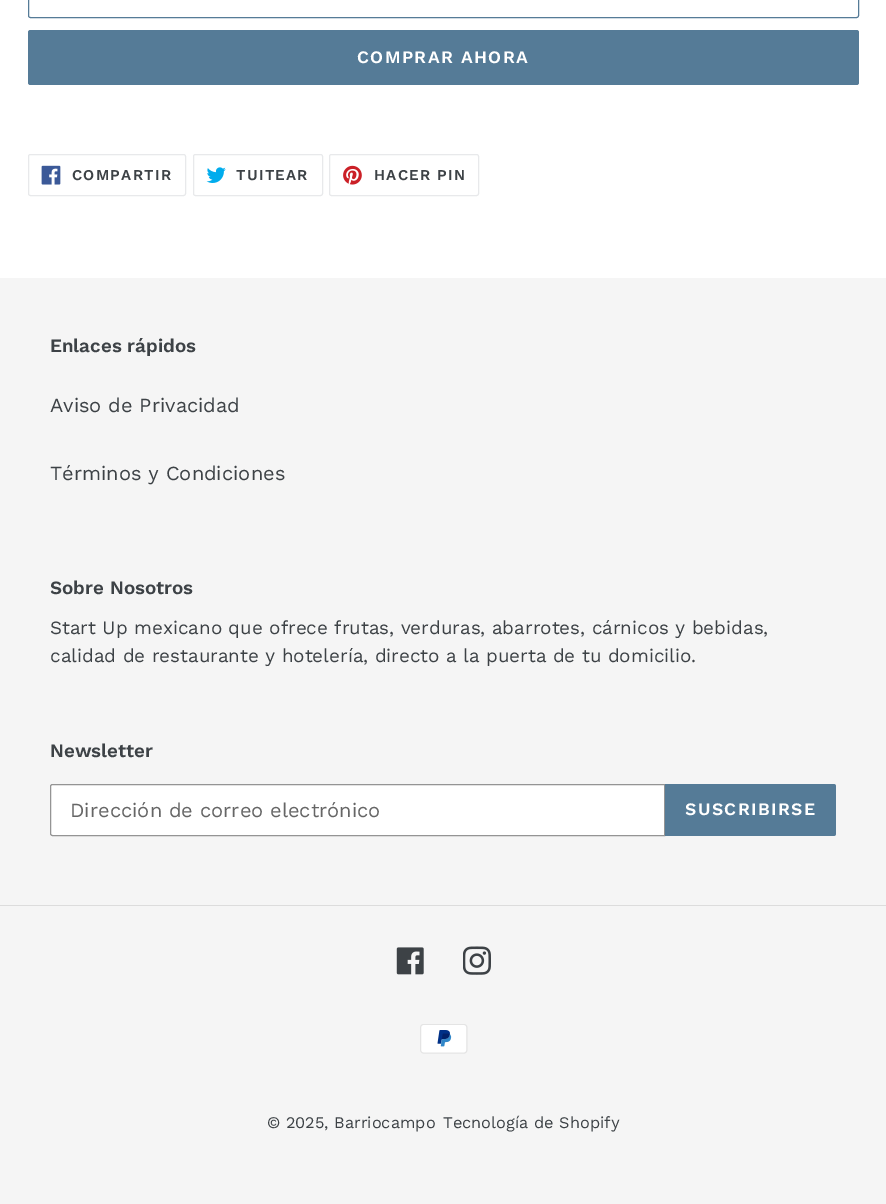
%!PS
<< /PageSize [886 1204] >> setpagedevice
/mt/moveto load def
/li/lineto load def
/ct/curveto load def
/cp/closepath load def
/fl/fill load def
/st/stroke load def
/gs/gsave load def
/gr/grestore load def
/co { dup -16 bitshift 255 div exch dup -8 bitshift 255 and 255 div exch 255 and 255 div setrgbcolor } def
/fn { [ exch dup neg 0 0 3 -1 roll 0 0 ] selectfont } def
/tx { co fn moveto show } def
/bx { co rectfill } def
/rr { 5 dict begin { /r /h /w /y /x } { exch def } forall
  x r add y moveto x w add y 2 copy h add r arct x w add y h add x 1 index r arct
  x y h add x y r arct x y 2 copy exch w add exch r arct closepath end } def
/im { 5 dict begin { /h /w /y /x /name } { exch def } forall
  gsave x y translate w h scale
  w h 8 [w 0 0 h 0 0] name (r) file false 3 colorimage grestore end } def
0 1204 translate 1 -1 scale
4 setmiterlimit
0 0 886 1204 16#FFFFFF bx
16#557B97 co
28.5 -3.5 830 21 2 rr st
28 30 831 55 2.5 rr fl
16#E8E9EB co
28.5 154.5 157 41 2 rr st
(media/1.raw) 41 165 20 20 im
193.5 154.5 129 41 2 rr st
(media/2.raw) 206 167 20 16 im
329.5 154.5 149 41 2 rr st
(media/3.raw) 343 165 19 20 im
0 278 886 926 16#F5F5F5 bx
16#FFFFFF co
52.5 784.5 mt 664.5 784.5 li 664.5 835.5 li 52.5 835.5 li 51.5 835.5 50.5 834.5 50.5 833.5 ct 50.5 786.5 li 50.5 785.5 51.5 784.5 52.5 784.5 ct cp gs fl gr
16#949494 co
st
16#557B97 co
665 784 mt 833.5 784 li 835 784 836 785 836 786.5 ct 836 833.5 li 836 835 835 836 833.5 836 ct 665 836 li cp fl
0 905 886 1 16#DCDCDC bx
(media/4.raw) 396 947 28 28 im
(media/5.raw) 463 946 28 29 im
(media/6.raw) 420 1024 48 30 im
/WorkSans-SemiBold 17.5 fn
16#FFFFFF co
357 63 mt 1.4 0 (COMPRAR AHORA) ashow
/WorkSans-SemiBold 15 fn
16#3D4246 co
72 180 mt 1.25 0 (COMPARTIR) ashow
236 180 mt 1.25 0 (TUITEAR) ashow
374 180 mt 1.25 0 (HACER PIN) ashow
(Enlaces rápidos) 50 352 /WorkSans-SemiBold 18.75 16#3D4246 tx
(Aviso de Privacidad) 50 412 /WorkSans-Regular 20 16#3D4246 tx
(Términos y Condiciones) 50 480 /WorkSans-Regular 20 16#3D4246 tx
(Sobre Nosotros) 50 594 /WorkSans-SemiBold 18.75 16#3D4246 tx
(Start Up mexicano que ofrece frutas, verduras, abarrotes, cárnicos y bebidas,) 50 634 /WorkSans-Regular 18.75 16#3D4246 tx
(calidad de restaurante y hotelería, directo a la puerta de tu domicilio.) 50 662 /WorkSans-Regular 18.75 16#3D4246 tx
(Newsletter) 50 757 /WorkSans-SemiBold 18.75 16#3D4246 tx
(Dirección de correo electrónico) 70 817 /WorkSans-Regular 20 16#666666 tx
/WorkSans-SemiBold 17.5 fn
16#FFFFFF co
685 815 mt 1.4 0 (SUSCRIBIRSE) ashow
(© 2025, Barriocampo) 267 1128 /WorkSans-Regular 16.25 16#3D4246 tx
(Tecnología de Shopify) 443 1128 /WorkSans-Regular 16.25 16#3D4246 tx
showpage
